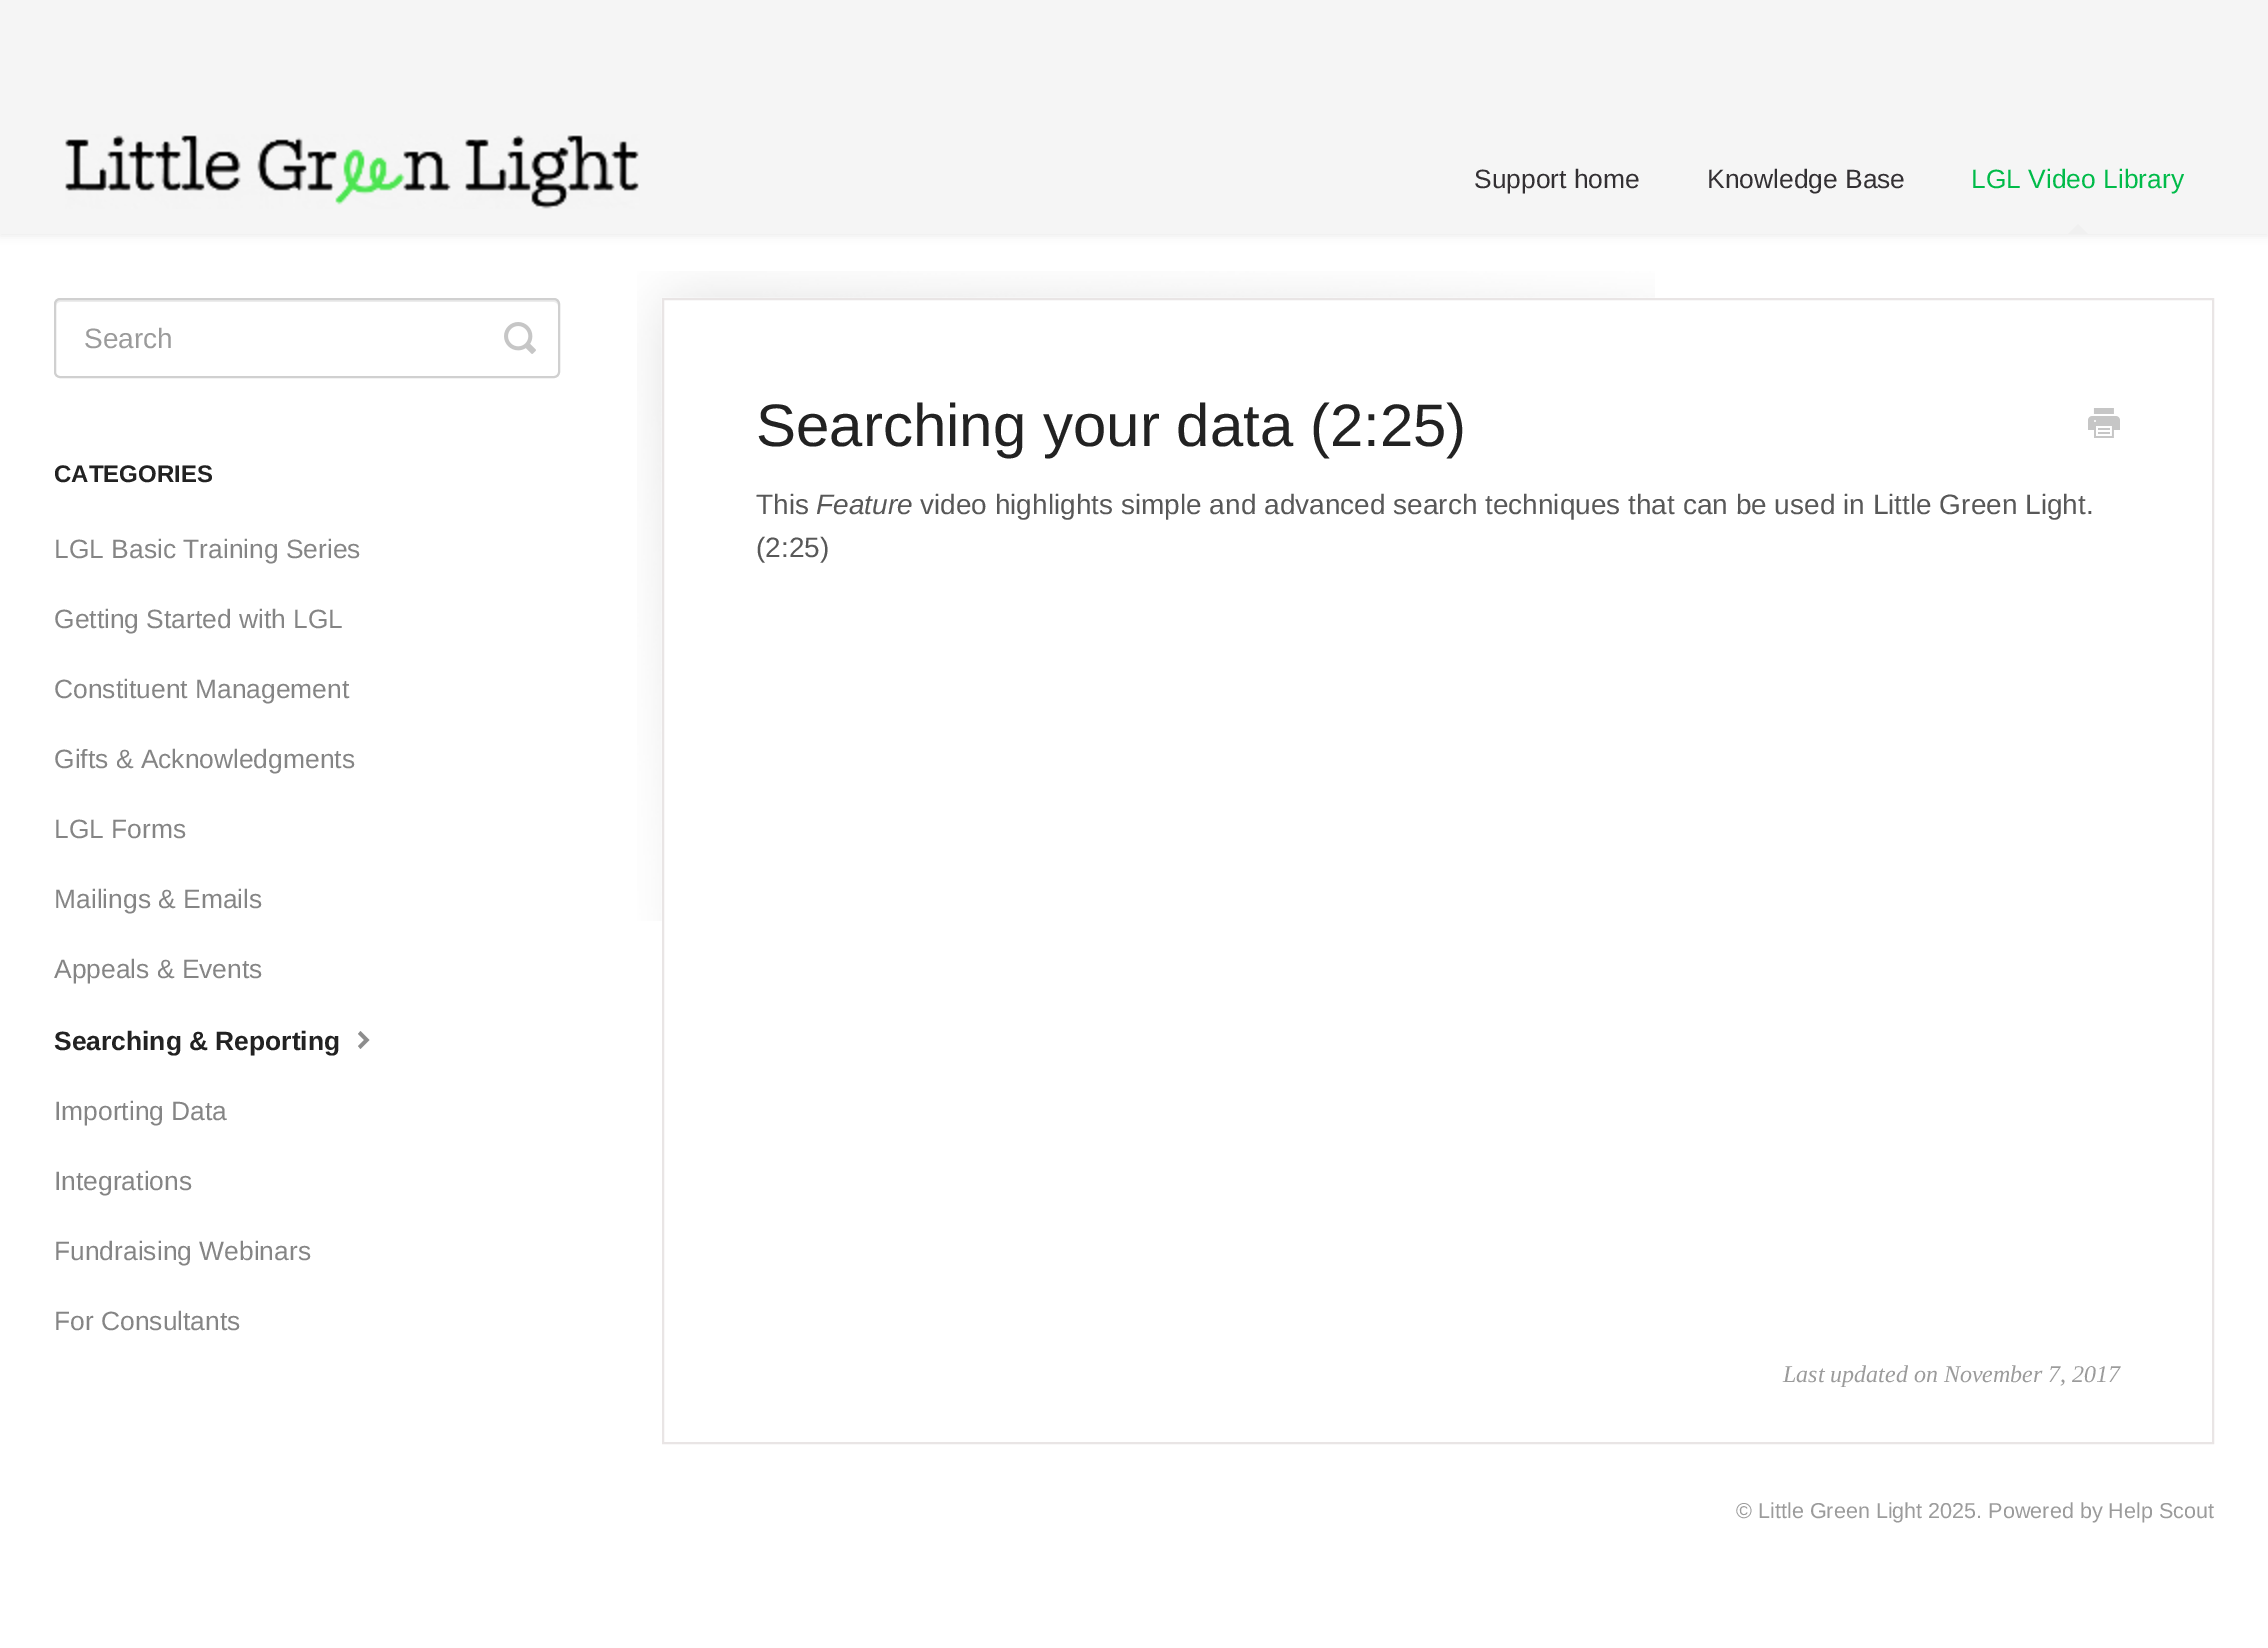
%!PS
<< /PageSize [2268 1648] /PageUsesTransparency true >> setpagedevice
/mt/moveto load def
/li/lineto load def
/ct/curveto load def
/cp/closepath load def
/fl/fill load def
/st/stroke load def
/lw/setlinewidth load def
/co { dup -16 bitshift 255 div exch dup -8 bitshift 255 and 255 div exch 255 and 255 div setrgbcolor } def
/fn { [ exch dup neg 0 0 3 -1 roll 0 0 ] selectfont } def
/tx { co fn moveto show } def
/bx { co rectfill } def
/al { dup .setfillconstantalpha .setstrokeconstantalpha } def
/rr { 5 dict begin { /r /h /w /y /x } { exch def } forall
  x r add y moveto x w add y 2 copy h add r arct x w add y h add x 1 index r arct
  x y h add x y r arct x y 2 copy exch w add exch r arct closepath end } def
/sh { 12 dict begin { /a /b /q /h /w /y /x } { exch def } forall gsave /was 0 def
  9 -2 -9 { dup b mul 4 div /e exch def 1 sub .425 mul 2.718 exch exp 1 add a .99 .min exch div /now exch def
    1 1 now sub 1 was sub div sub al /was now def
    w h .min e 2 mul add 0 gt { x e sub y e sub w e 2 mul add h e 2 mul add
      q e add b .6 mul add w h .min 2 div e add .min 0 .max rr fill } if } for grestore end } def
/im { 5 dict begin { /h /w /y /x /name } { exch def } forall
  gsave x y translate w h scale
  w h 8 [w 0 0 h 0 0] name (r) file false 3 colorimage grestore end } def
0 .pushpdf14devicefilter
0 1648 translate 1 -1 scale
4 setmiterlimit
0 0 2268 1648 16#FFFFFF bx
16#000000 co
0 2 2268 234 0 4 .07 sh
0 0 2268 234 16#F5F5F5 bx
(media/1.raw) 65 134 575 75 im
16#F0F0F0 co
2088 234 mt 2068 234 li 2078 224 li cp fl
16#ECECEC co
60 302 mt 554 302 li 556 302 558 304 558 306 ct 558 303 558 300 554 300 ct 60 300 li 56 300 56 303 56 306 ct 56 304 58 302 60 302 ct cp fl
16#D0D0D0 co
2 lw
55 299 504 78 5 rr st
(media/2.raw) 504 322 32 32 im
16#8D8D8D co
360.5 1031 mt 358 1034 li 364 1040 li 358 1046 li 360.5 1049 li 369.5 1040 li cp fl
(media/3.raw) 637 271 1018 650 im
16#E9E5E5 co
663 299 1550 1144 rectstroke
(media/4.raw) 2088 408 32 30 im
(Support home) 1474 188 /LiberationSans-Regular 26.4 16#333033 tx
(Knowledge Base) 1707 188 /LiberationSans-Regular 26.4 16#333033 tx
(LGL Video Library) 1971 188 /LiberationSans-Regular 26.4 16#00BB49 tx
(Search) 84 348 /LiberationSans-Regular 28 16#9B9B9B tx
(CATEGORIES) 54 482 /LiberationSans-Bold 24 16#222222 tx
(LGL Basic Training Series) 54 558 /LiberationSans-Regular 26.4 16#858585 tx
(Getting Started with LGL) 54 628 /LiberationSans-Regular 26.4 16#858585 tx
(Constituent Management) 54 698 /LiberationSans-Regular 26.4 16#858585 tx
(Gifts & Acknowledgments) 54 768 /LiberationSans-Regular 26.4 16#858585 tx
(LGL Forms) 54 838 /LiberationSans-Regular 26.4 16#858585 tx
(Mailings & Emails) 54 908 /LiberationSans-Regular 26.4 16#858585 tx
(Appeals & Events) 54 978 /LiberationSans-Regular 26.4 16#858585 tx
(Searching & Reporting) 54 1050 /LiberationSans-Bold 26.4 16#222222 tx
(Importing Data) 54 1120 /LiberationSans-Regular 26.4 16#858585 tx
(Integrations) 54 1190 /LiberationSans-Regular 26.4 16#858585 tx
(Fundraising Webinars) 54 1260 /LiberationSans-Regular 26.4 16#858585 tx
(For Consultants) 54 1330 /LiberationSans-Regular 26.4 16#858585 tx
(Searching your data \(2:25\)) 756 446 /LiberationSans-Regular 60 16#222222 tx
(This) 756 514 /LiberationSans-Regular 28 16#585858 tx
(Feature) 816 514 /LiberationSans-Italic 28 16#585858 tx
(video highlights simple and advanced search techniques that can be used in Little Green Light.) 920 514 /LiberationSans-Regular 28 16#585858 tx
(\(2:25\)) 756 557 /LiberationSans-Regular 28 16#585858 tx
(Last updated on November 7, 2017) 1783 1382 /LiberationSerif-Italic 24 16#9B9B9B tx
(© Little Green Light 2025. Powered by Help Scout) 1736 1518 /LiberationSans-Regular 21.6 16#9B9B9B tx
.poppdf14devicefilter showpage
